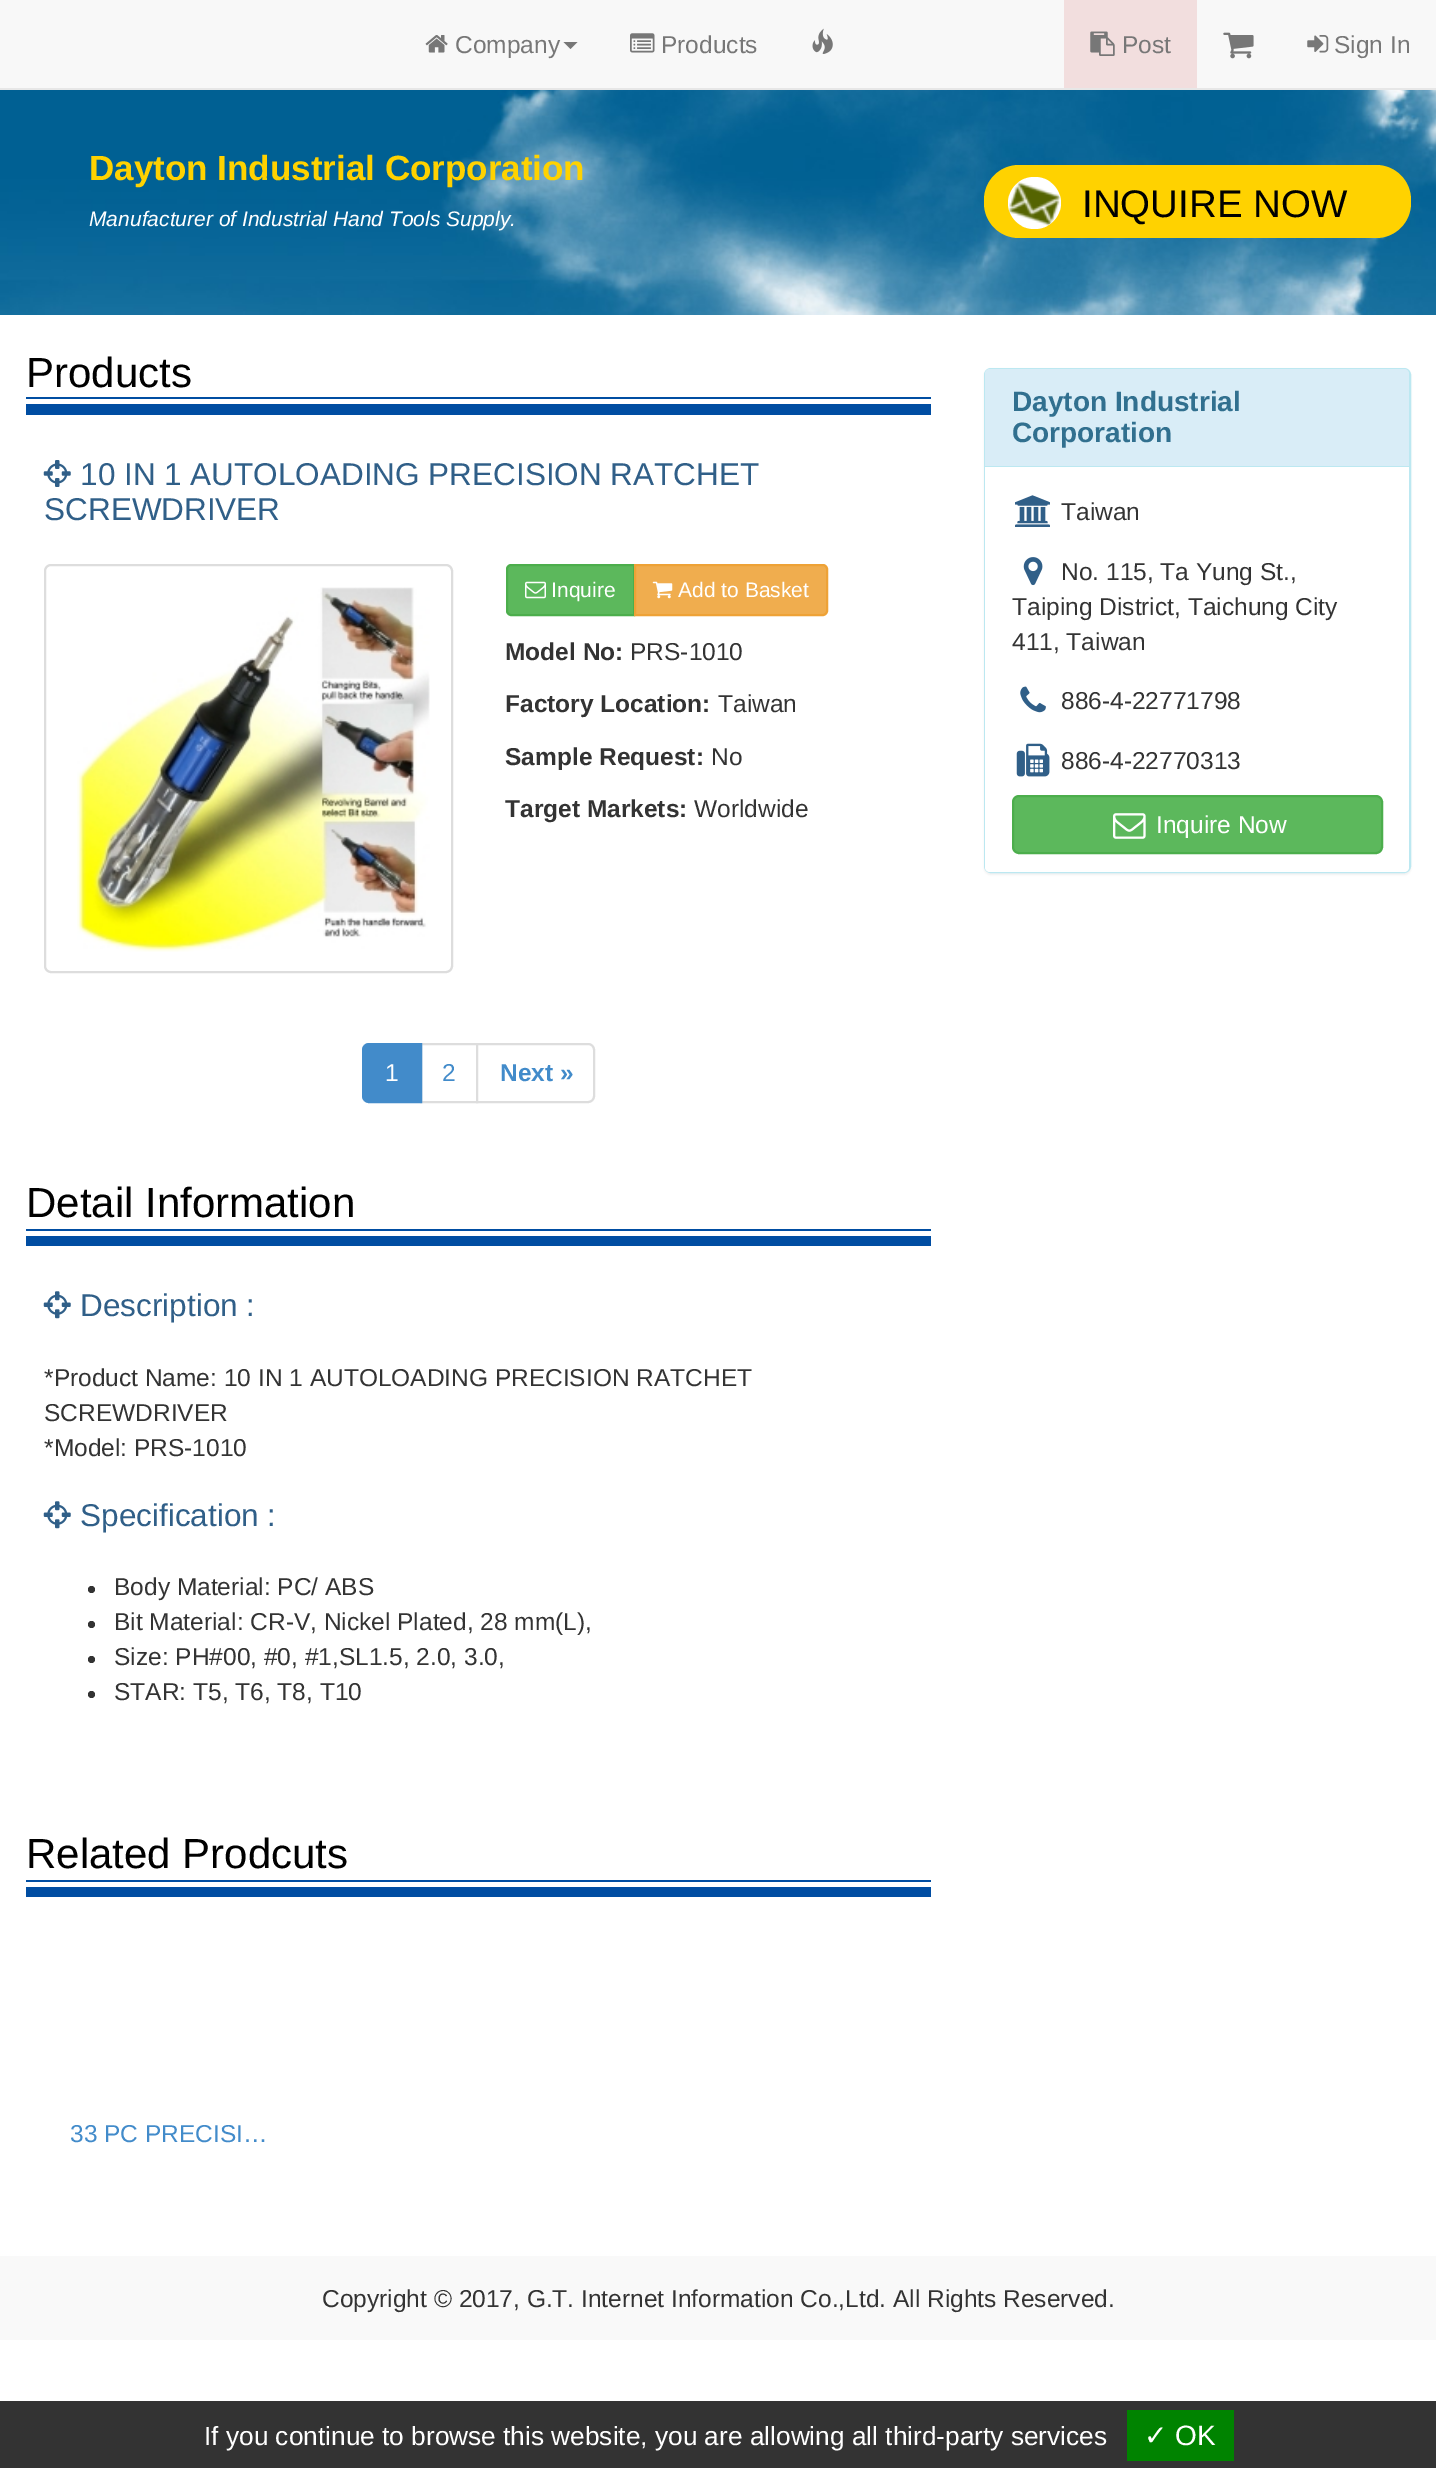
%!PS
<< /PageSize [1436 2468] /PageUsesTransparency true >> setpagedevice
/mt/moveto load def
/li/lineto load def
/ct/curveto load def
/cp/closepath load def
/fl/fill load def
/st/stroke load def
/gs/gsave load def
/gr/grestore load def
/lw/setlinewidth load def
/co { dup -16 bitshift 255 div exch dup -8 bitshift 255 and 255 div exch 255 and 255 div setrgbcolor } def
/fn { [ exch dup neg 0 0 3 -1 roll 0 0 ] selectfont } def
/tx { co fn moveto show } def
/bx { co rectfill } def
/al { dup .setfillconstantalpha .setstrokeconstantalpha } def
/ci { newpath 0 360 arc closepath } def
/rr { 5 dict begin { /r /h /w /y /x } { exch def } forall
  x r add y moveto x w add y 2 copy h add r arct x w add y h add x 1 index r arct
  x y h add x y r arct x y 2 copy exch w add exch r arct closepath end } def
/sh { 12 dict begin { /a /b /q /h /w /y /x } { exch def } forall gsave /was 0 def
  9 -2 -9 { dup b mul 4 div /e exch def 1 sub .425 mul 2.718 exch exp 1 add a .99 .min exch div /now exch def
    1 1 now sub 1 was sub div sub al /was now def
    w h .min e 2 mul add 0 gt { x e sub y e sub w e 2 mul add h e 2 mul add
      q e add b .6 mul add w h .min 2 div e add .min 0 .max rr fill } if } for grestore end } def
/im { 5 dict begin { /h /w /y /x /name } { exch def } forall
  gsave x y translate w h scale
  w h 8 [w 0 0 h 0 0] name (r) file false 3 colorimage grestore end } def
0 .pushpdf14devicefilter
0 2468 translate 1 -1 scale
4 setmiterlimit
0 0 1436 2468 16#FFFFFF bx
0 0 1436 88 16#F8F8F8 bx
0 88 1436 2 16#E7E7E7 bx
(media/1.raw) 425 35 23 18 im
16#777777 co
563.5 42 mt 577.5 42 li 570.5 49 li cp fl
(media/2.raw) 630 33 25 20 im
(media/3.raw) 812 28 21 26 im
1064 0 133 88 16#F2DEDE bx
(media/4.raw) 1090 31 25 25 im
(media/5.raw) 1223 32 31 27 im
(media/6.raw) 1307 35 22 18 im
(media/7.raw) 0 90 1436 225 im
16#FFD200 co
984 165 427 73 35 rr fl
16#FFFFFF co
1008 177 53 52 26 rr fl
(media/8.raw) 1009 182 51 44 im
26 404 905 11 16#004DA2 bx
26 397 905 2 16#004DA2 bx
(media/9.raw) 43 460 28 27 im
16#DDDDDD co
2 lw
45 565 407 407 6 rr st
(media/10.raw) 77 587 353 365 im
16#5CB85C co
511 565 mt 634 565 li 634 615 li 511 615 li 509 615 507 613 507 611 ct 507 569 li 507 567 509 565 511 565 ct cp gs fl gr
16#4CAE4C co
st
(media/11.raw) 525 581 21 18 im
16#F0AD4E co
635 565 mt 823 565 li 825 565 827 567 827 569 ct 827 611 li 827 613 825 615 823 615 ct 635 615 li cp gs fl gr
16#EEA236 co
st
(media/12.raw) 652 581 21 18 im
16#DDDDDD co
421 1044 56 58 rectstroke
16#428BCA co
369 1044 mt 421 1044 li 421 1102 li 369 1102 li 365.5 1102 363 1099.5 363 1096 ct 363 1050 li 363 1046.5 365.5 1044 369 1044 ct cp gs fl gr
st
16#FFFFFF co
477 1044 mt 588 1044 li 591.5 1044 594 1046.5 594 1050 ct 594 1096 li 594 1099.5 591.5 1102 588 1102 ct 477 1102 li cp gs fl gr
16#DDDDDD co
st
26 1236 905 10 16#004DA2 bx
26 1229 905 2 16#004DA2 bx
(media/13.raw) 43 1291 28 28 im
(media/13.raw) 43 1501 28 28 im
16#333333 co
91.5 1589.5 3.5 ci fl
91.5 1624.5 3.5 ci fl
91.5 1659.5 3.5 ci fl
91.5 1694.5 3.5 ci fl
26 1887 905 10 16#004DA2 bx
26 1880 905 2 16#004DA2 bx
16#000000 co
984 369 427 506 7 1 .05 sh
16#BCE8F1 co
985 369 425 503 6 rr st
16#D9EDF7 co
990 369 mt 1404 369 li 1407 369 1409 371 1409 374 ct 1409 467 li 985 467 li 985 374 li 985 371 987 369 990 369 ct cp fl
985 466 424 1 16#BCE8F1 bx
985 467 424 310 16#FFFFFF bx
(media/14.raw) 1015 495 35 32 im
(media/15.raw) 1023 557 20 29 im
(media/16.raw) 1020 686 26 27 im
(media/17.raw) 1016 743 34 34 im
985 777 mt 1409 777 li 1409 867 li 1409 870 1407 872 1404 872 ct 990 872 li 987 872 985 870 985 867 ct cp fl
16#5CB85C co
1013 796 369 57 6 rr gs fl gr
16#4CAE4C co
st
(media/18.raw) 1113 813 33 26 im
0 2256 1436 84 16#F9F9F9 bx
0 2401 1436 67 16#333333 bx
1127 2410 107 51 16#008300 bx
(Company) 455 53 /LiberationSans-Regular 24.5 16#777777 tx
(Products) 661 53 /LiberationSans-Regular 24.5 16#777777 tx
(Post) 1122 53 /LiberationSans-Regular 24.5 16#777777 tx
(Sign In) 1334 53 /LiberationSans-Regular 24.5 16#777777 tx
(Dayton Industrial Corporation) 89 180 /LiberationSans-Bold 35 16#FFD200 tx
(Manufacturer of Industrial Hand Tools Supply.) 89 226 /LiberationSans-Italic 21 16#FFFFFF tx
(INQUIRE NOW) 1082 217 /LiberationSans-Regular 38.5 16#000000 tx
(Products) 26 387 /LiberationSans-Regular 42 16#000000 tx
(10 IN 1 AUTOLOADING PRECISION RATCHET) 80 485 /LiberationSans-Regular 31.5 16#305F88 tx
(SCREWDRIVER) 44 520 /LiberationSans-Regular 31.5 16#305F88 tx
(Inquire) 551 597 /LiberationSans-Regular 21 16#FFFFFF tx
(Add to Basket) 678 597 /LiberationSans-Regular 21 16#FFFFFF tx
(Model No:) 505 660 /LiberationSans-Bold 24.5 16#333333 tx
(PRS-1010) 630 660 /LiberationSans-Regular 24.5 16#333333 tx
(Factory Location:) 505 712 /LiberationSans-Bold 24.5 16#333333 tx
(Taiwan) 718 712 /LiberationSans-Regular 24.5 16#333333 tx
(Sample Request:) 505 765 /LiberationSans-Bold 24.5 16#333333 tx
(No) 711 765 /LiberationSans-Regular 24.5 16#333333 tx
(Target Markets:) 505 817 /LiberationSans-Bold 24.5 16#333333 tx
(Worldwide) 694 817 /LiberationSans-Regular 24.5 16#333333 tx
(1) 385 1081 /LiberationSans-Regular 24.5 16#FFFFFF tx
(2) 442 1081 /LiberationSans-Regular 24.5 16#428BCA tx
(Next ») 500 1081 /LiberationSans-Bold 24.5 16#428BCA tx
(Detail Information) 26 1217 /LiberationSans-Regular 42 16#000000 tx
(Description :) 80 1316 /LiberationSans-Regular 31.5 16#305F88 tx
(*Product Name: 10 IN 1 AUTOLOADING PRECISION RATCHET) 44 1386 /LiberationSans-Regular 24.5 16#333333 tx
(SCREWDRIVER) 44 1421 /LiberationSans-Regular 24.5 16#333333 tx
(*Model: PRS-1010) 44 1456 /LiberationSans-Regular 24.5 16#333333 tx
(Specification :) 80 1526 /LiberationSans-Regular 31.5 16#305F88 tx
(Body Material: PC/ ABS) 114 1595 /LiberationSans-Regular 24.5 16#333333 tx
(Bit Material: CR-V, Nickel Plated, 28 mm\(L\),) 114 1630 /LiberationSans-Regular 24.5 16#333333 tx
(Size: PH#00, #0, #1,SL1.5, 2.0, 3.0,) 114 1665 /LiberationSans-Regular 24.5 16#333333 tx
(STAR: T5, T6, T8, T10) 114 1700 /LiberationSans-Regular 24.5 16#333333 tx
(Related Prodcuts) 26 1868 /LiberationSans-Regular 42 16#000000 tx
(33 PC PRECISI…) 70 2142 /LiberationSans-Regular 24.5 16#428BCA tx
(Dayton Industrial) 1012 411 /LiberationSans-Bold 28 16#31708F tx
(Corporation) 1012 442 /LiberationSans-Bold 28 16#31708F tx
(Taiwan) 1061 520 /LiberationSans-Regular 24.5 16#333333 tx
(No. 115, Ta Yung St.,) 1061 580 /LiberationSans-Regular 24.5 16#333333 tx
(Taiping District, Taichung City) 1012 615 /LiberationSans-Regular 24.5 16#333333 tx
(411, Taiwan) 1012 650 /LiberationSans-Regular 24.5 16#333333 tx
(886-4-22771798) 1061 709 /LiberationSans-Regular 24.5 16#333333 tx
(886-4-22770313) 1061 769 /LiberationSans-Regular 24.5 16#333333 tx
(Inquire Now) 1156 833 /LiberationSans-Regular 24.5 16#FFFFFF tx
(Copyright © 2017, G.T. Internet Information Co.,Ltd. All Rights Reserved.) 322 2307 /LiberationSans-Regular 24.5 16#333333 tx
(If you continue to browse this website, you are allowing all third-party services) 204 2445 /LiberationSans-Regular 26.25 16#FFFFFF tx
(✓) 1144 2445 /DejaVuSans-Regular 28 16#FFFFFF tx
(OK) 1175 2445 /LiberationSans-Regular 28 16#FFFFFF tx
.poppdf14devicefilter showpage
